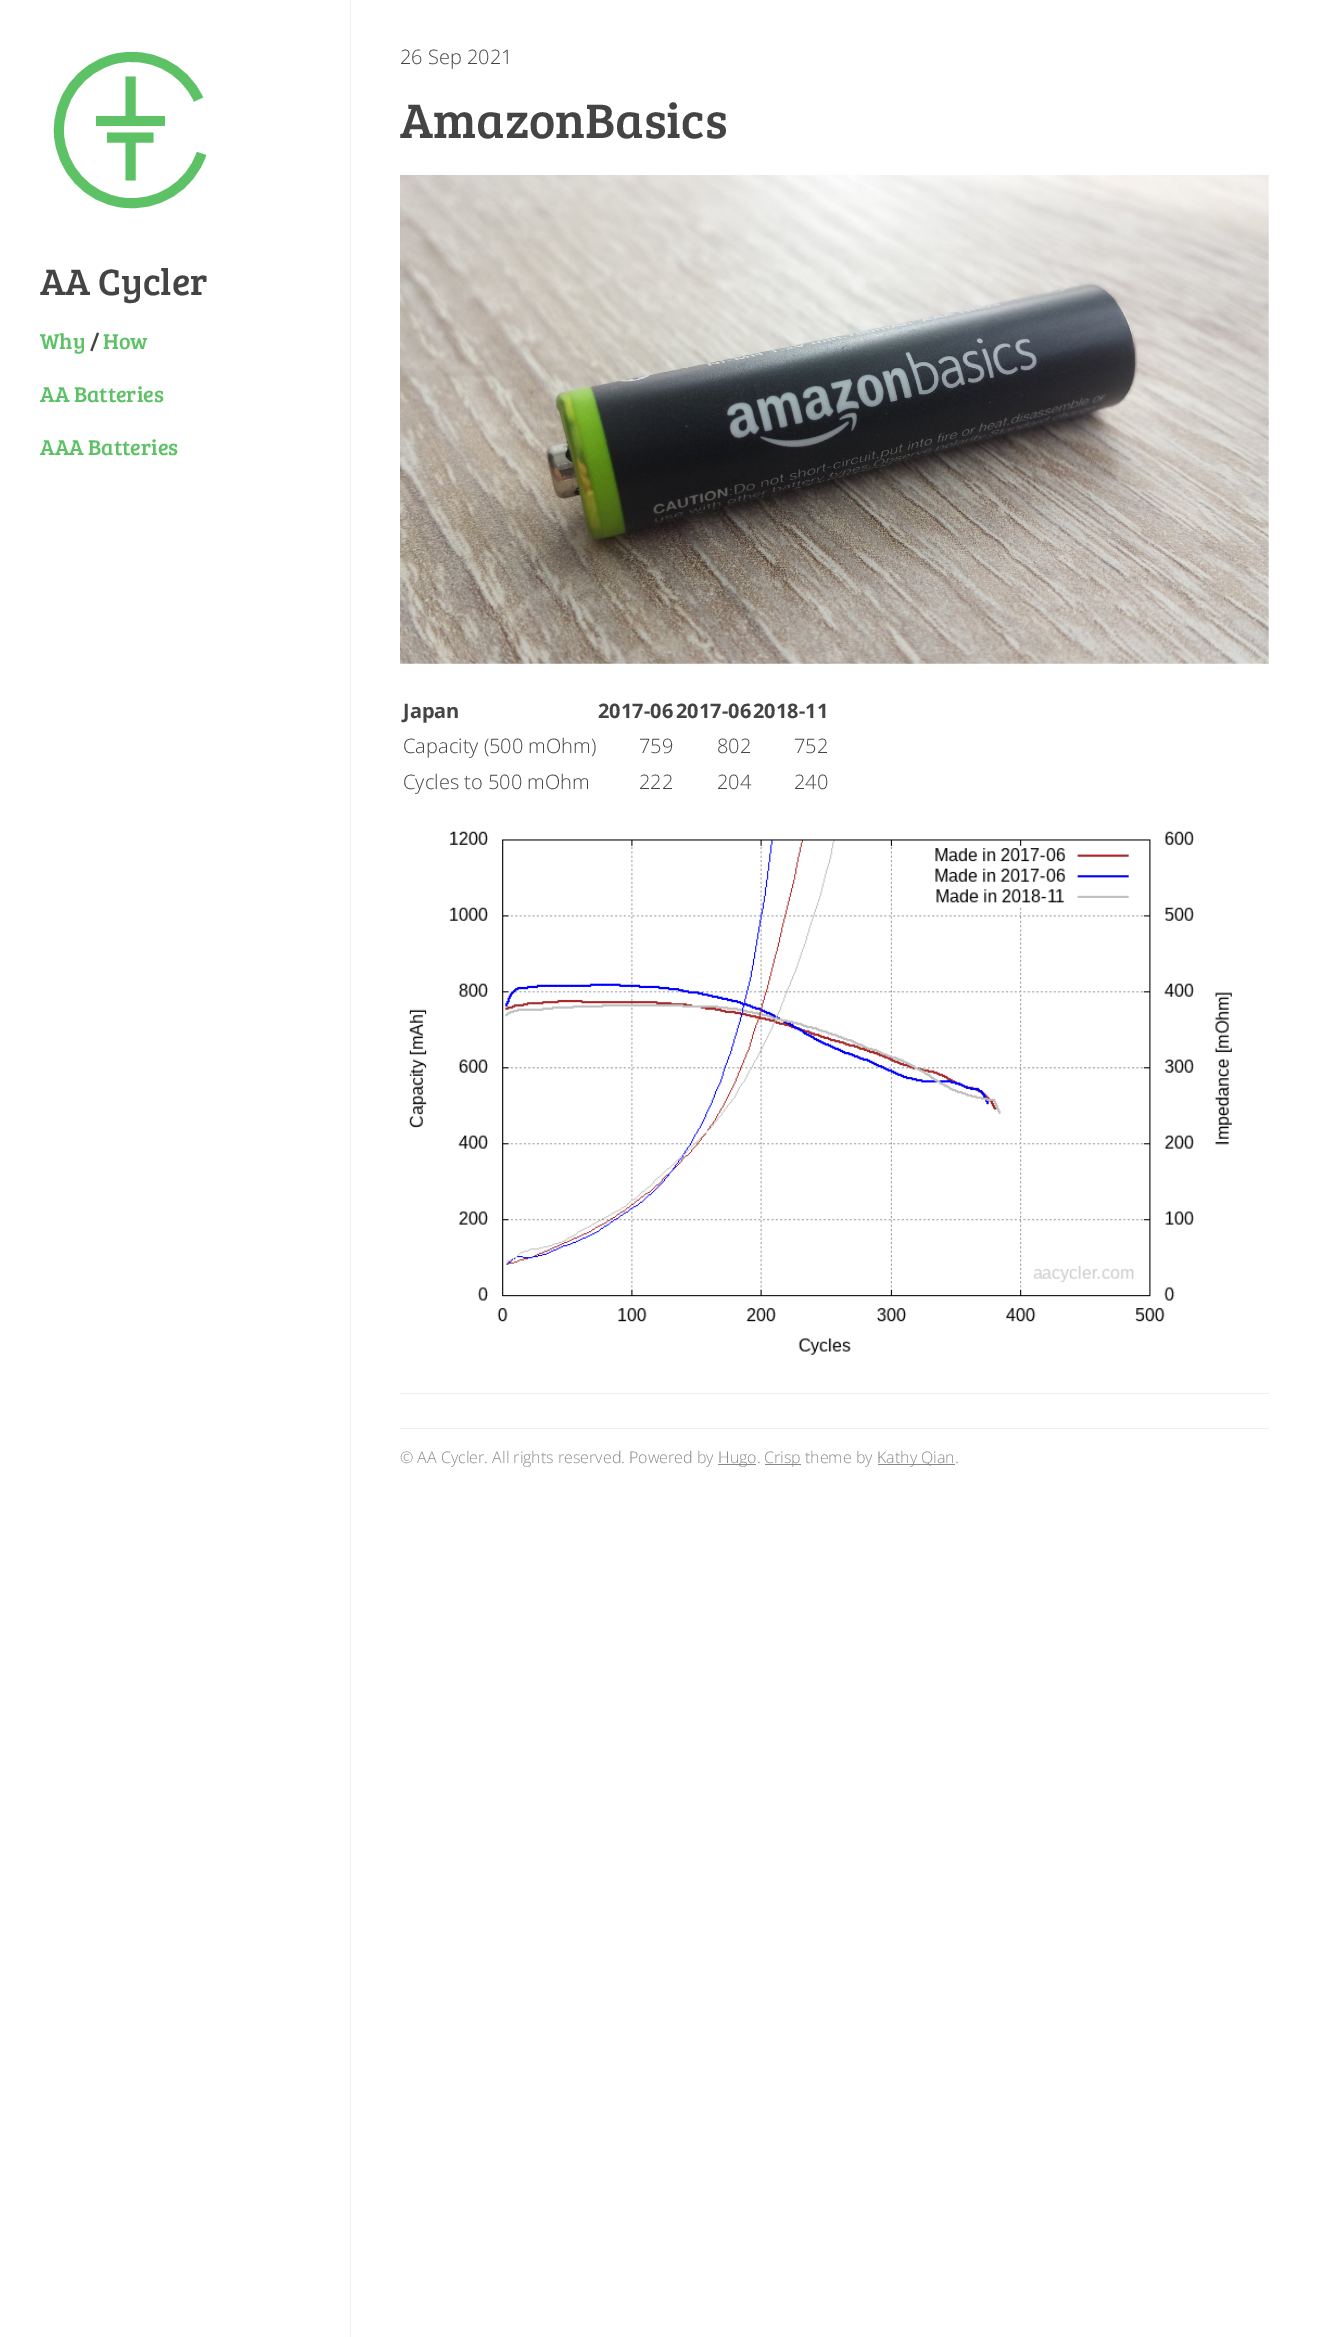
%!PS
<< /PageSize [1318 2337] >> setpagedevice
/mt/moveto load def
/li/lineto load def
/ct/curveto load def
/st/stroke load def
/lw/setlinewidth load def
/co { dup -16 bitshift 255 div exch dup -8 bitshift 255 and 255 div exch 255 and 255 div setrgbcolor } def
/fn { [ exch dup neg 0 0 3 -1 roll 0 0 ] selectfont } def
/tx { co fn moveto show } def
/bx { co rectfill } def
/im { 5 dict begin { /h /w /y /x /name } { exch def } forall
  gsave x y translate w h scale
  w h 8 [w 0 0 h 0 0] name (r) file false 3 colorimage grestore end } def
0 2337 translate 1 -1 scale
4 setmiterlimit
0 0 1318 2337 16#FFFFFF bx
350 0 1 2337 16#EEEEEE bx
16#5CC265 co
9.9 lw
201.5 153.5 mt 190.5 186.5 157 207.5 122 202.5 ct 87.5 198 61 169 59 134 ct 57 99 80.5 67.5 114.5 59 ct 148.5 50.5 184 67.5 198.5 99.5 ct st
96 116 69 10 16#5EC367 bx
16#5CC265 co
130.5 119.5 mt 130.5 76.5 li st
107 137.5 mt 153.5 137.5 li st
130.5 180.5 mt 130.5 139 li st
400 1428 869 1 16#EEEEEE bx
(media/1.raw) 400 175 869 489 im
(media/2.raw) 409 831 823 524 im
400 1393 869 1 16#EEEEEE bx
718 1464 38 1 16#888888 bx
765 1464 36 1 16#888888 bx
878 1464 77 1 16#888888 bx
(AA Cycler) 40 295 /BreeSerif-Regular 38 16#444444 tx
(Why) 40 349 /BreeSerif-Regular 22 16#5CC265 tx
(/) 90 349 /BreeSerif-Regular 22 16#444444 tx
(How) 103 349 /BreeSerif-Regular 22 16#5CC265 tx
(AA Batteries) 40 402 /BreeSerif-Regular 22 16#5CC265 tx
(AAA Batteries) 40 455 /BreeSerif-Regular 22 16#5CC265 tx
(26 Sep 2021) 400 64 /OpenSans-Light 20 16#444444 tx
(AmazonBasics) 400 138 /BreeSerif-Regular 50 16#444444 tx
(Japan) 403 718 /OpenSans-Bold 20 16#444444 tx
(2017-06) 598 718 /OpenSans-Bold 20 16#444444 tx
(2017-06) 676 718 /OpenSans-Bold 20 16#444444 tx
(2018-11) 753 718 /OpenSans-Bold 20 16#444444 tx
(Capacity \(500 mOhm\)) 403 753 /OpenSans-Light 20 16#444444 tx
(759) 639 753 /OpenSans-Light 20 16#444444 tx
(802) 717 753 /OpenSans-Light 20 16#444444 tx
(752) 794 753 /OpenSans-Light 20 16#444444 tx
(Cycles to 500 mOhm) 403 789 /OpenSans-Light 20 16#444444 tx
(222) 639 789 /OpenSans-Light 20 16#444444 tx
(204) 717 789 /OpenSans-Light 20 16#444444 tx
(240) 794 789 /OpenSans-Light 20 16#444444 tx
(© AA Cycler. All rights reserved. Powered by) 400 1463 /OpenSans-Light 16 16#888888 tx
(Hugo.) 718 1463 /OpenSans-Light 16 16#888888 tx
(Crisp theme by) 764 1463 /OpenSans-Light 16 16#888888 tx
(Kathy Qian.) 877 1463 /OpenSans-Light 16 16#888888 tx
showpage
